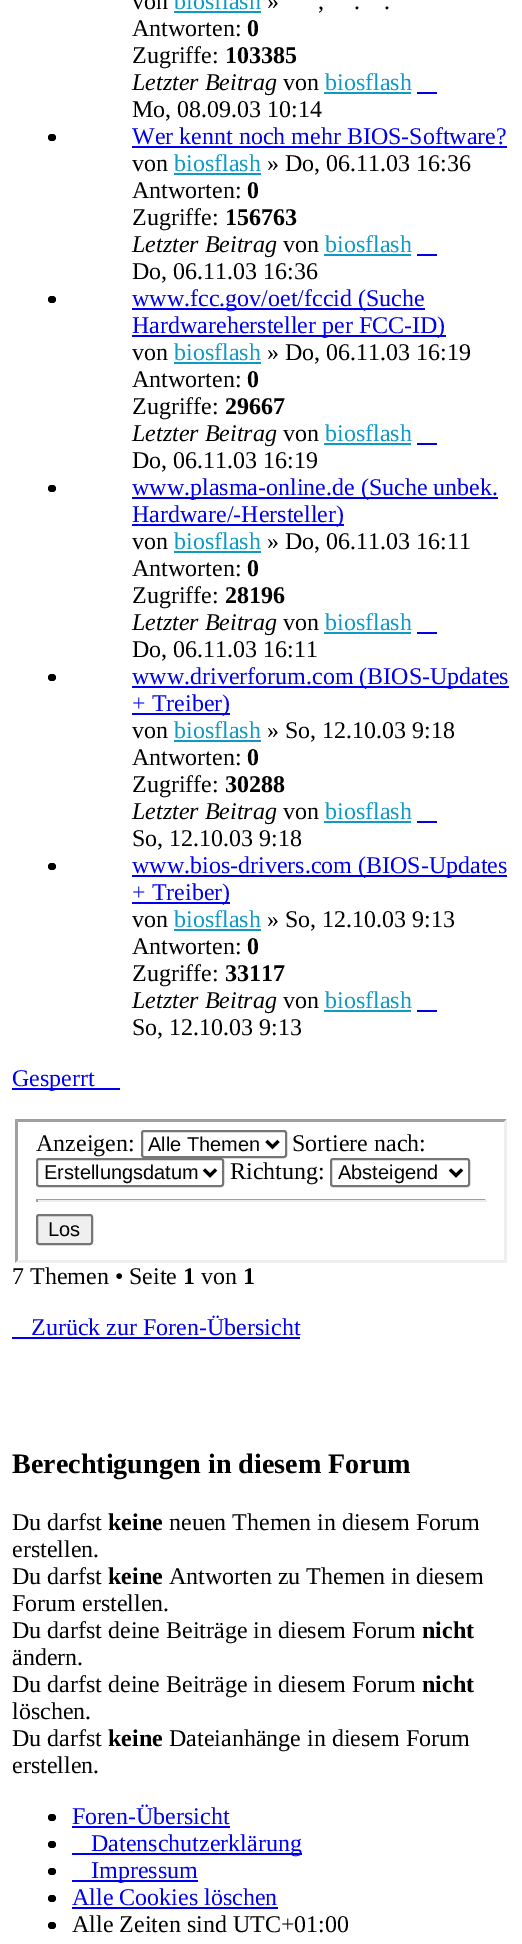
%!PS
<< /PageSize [522 1944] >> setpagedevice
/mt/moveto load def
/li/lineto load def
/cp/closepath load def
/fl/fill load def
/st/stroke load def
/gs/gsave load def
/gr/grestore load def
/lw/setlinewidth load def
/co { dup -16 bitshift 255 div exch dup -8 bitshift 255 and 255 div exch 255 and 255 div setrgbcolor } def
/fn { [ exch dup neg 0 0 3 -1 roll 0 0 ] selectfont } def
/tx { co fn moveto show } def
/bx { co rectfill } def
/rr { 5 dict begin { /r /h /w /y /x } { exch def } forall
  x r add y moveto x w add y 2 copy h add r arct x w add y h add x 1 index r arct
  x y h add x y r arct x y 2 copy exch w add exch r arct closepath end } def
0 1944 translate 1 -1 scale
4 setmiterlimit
0 0 522 1944 16#FFFFFF bx
174 11 87 2 16#0E9AC4 bx
324 92 87 2 16#0E9AC4 bx
417 92 20 2 16#0000EE bx
16#000000 co
48 134 8 7 3.5 rr fl
132 146 375 2 16#0000EE bx
174 173 87 2 16#0E9AC4 bx
324 254 87 2 16#0E9AC4 bx
417 254 20 2 16#0000EE bx
16#000000 co
48 296 8 7 3.5 rr fl
132 308 293 2 16#0000EE bx
132 335 314 2 16#0000EE bx
174 362 87 2 16#0E9AC4 bx
324 443 87 2 16#0E9AC4 bx
417 443 20 2 16#0000EE bx
16#000000 co
48 485 8 7 3.5 rr fl
132 497 366 2 16#0000EE bx
132 524 212 2 16#0000EE bx
174 551 87 2 16#0E9AC4 bx
324 632 87 2 16#0E9AC4 bx
417 632 20 2 16#0000EE bx
16#000000 co
48 674 8 7 3.5 rr fl
132 686 377 2 16#0000EE bx
132 713 98 2 16#0000EE bx
174 740 87 2 16#0E9AC4 bx
324 821 87 2 16#0E9AC4 bx
417 821 20 2 16#0000EE bx
16#000000 co
48 863 8 7 3.5 rr fl
132 875 375 2 16#0000EE bx
132 902 98 2 16#0000EE bx
174 929 87 2 16#0E9AC4 bx
324 1010 87 2 16#0E9AC4 bx
417 1010 20 2 16#0000EE bx
12 1088 108 2 16#0000EE bx
16#9F9F9F co
15 1119 mt 507 1119 li 504 1122 li 18 1122 li cp fl
16#EFEFEF co
507 1119 mt 507 1263 li 504 1260 li 504 1122 li cp fl
507 1263 mt 15 1263 li 18 1260 li 504 1260 li cp fl
16#9F9F9F co
15 1263 mt 15 1119 li 18 1122 li 18 1260 li cp fl
16#767676 co
2 lw
37 1159 186 27 2 rr st
16#000000 co
3 lw
204 1169.5 mt 210 1175.5 li 216 1169.5 li st
16#767676 co
2 lw
142 1131 144 26 2 rr st
16#000000 co
3 lw
266.5 1141 mt 272.5 1147 li 278.5 1141 li st
16#767676 co
2 lw
331 1159 138 27 2 rr st
16#000000 co
3 lw
450 1169.5 mt 456 1175.5 li 462 1169.5 li st
36 1199 450 1 16#9F9F9F bx
485 1199 2 3 16#EEEEEE bx
36 1200 450 2 16#EEEEEE bx
36 1199 2 3 16#9F9F9F bx
16#EFEFEF co
37 1215 55 29 2 rr gs fl gr
16#767676 co
2 lw
st
12 1337 288 2 16#0000EE bx
16#000000 co
48 1814 8 7 3.5 rr fl
72 1826 158 2 16#0000EE bx
16#000000 co
48 1841 8 7 3.5 rr fl
72 1853 230 2 16#0000EE bx
16#000000 co
48 1868 8 7 3.5 rr fl
72 1880 126 2 16#0000EE bx
16#000000 co
48 1895 8 7 3.5 rr fl
72 1907 206 2 16#0000EE bx
16#000000 co
48 1922 8 7 3.5 rr fl
(von) 132 9 /LiberationSerif-Regular 24 16#000000 tx
(biosflash) 174 9 /LiberationSerif-Regular 24 16#0E9AC4 tx
(») 267 9 /LiberationSerif-Regular 24 16#000000 tx
(,) 318 9 /LiberationSerif-Regular 24 16#000000 tx
(.) 354 9 /LiberationSerif-Regular 24 16#000000 tx
(.) 384 9 /LiberationSerif-Regular 24 16#000000 tx
(Antworten:) 132 36 /LiberationSerif-Regular 24 16#000000 tx
(0) 247 36 /LiberationSerif-Bold 24 16#000000 tx
(Zugriffe:) 132 63 /LiberationSerif-Regular 24 16#000000 tx
(103385) 225 63 /LiberationSerif-Bold 24 16#000000 tx
(Letzter Beitrag) 132 90 /LiberationSerif-Italic 24 16#000000 tx
(von) 283 90 /LiberationSerif-Regular 24 16#000000 tx
(biosflash) 325 90 /LiberationSerif-Regular 24 16#0E9AC4 tx
(Mo, 08.09.03 10:14) 132 117 /LiberationSerif-Regular 24 16#000000 tx
(Wer kennt noch mehr BIOS-Software?) 132 144 /LiberationSerif-Regular 24 16#0000EE tx
(von) 132 171 /LiberationSerif-Regular 24 16#000000 tx
(biosflash) 174 171 /LiberationSerif-Regular 24 16#0E9AC4 tx
(» Do, 06.11.03 16:36) 267 171 /LiberationSerif-Regular 24 16#000000 tx
(Antworten:) 132 198 /LiberationSerif-Regular 24 16#000000 tx
(0) 247 198 /LiberationSerif-Bold 24 16#000000 tx
(Zugriffe:) 132 225 /LiberationSerif-Regular 24 16#000000 tx
(156763) 225 225 /LiberationSerif-Bold 24 16#000000 tx
(Letzter Beitrag) 132 252 /LiberationSerif-Italic 24 16#000000 tx
(von) 283 252 /LiberationSerif-Regular 24 16#000000 tx
(biosflash) 325 252 /LiberationSerif-Regular 24 16#0E9AC4 tx
(Do, 06.11.03 16:36) 132 279 /LiberationSerif-Regular 24 16#000000 tx
(www.fcc.gov/oet/fccid \(Suche) 132 306 /LiberationSerif-Regular 24 16#0000EE tx
(Hardwarehersteller per FCC-ID\)) 132 333 /LiberationSerif-Regular 24 16#0000EE tx
(von) 132 360 /LiberationSerif-Regular 24 16#000000 tx
(biosflash) 174 360 /LiberationSerif-Regular 24 16#0E9AC4 tx
(» Do, 06.11.03 16:19) 267 360 /LiberationSerif-Regular 24 16#000000 tx
(Antworten:) 132 387 /LiberationSerif-Regular 24 16#000000 tx
(0) 247 387 /LiberationSerif-Bold 24 16#000000 tx
(Zugriffe:) 132 414 /LiberationSerif-Regular 24 16#000000 tx
(29667) 225 414 /LiberationSerif-Bold 24 16#000000 tx
(Letzter Beitrag) 132 441 /LiberationSerif-Italic 24 16#000000 tx
(von) 283 441 /LiberationSerif-Regular 24 16#000000 tx
(biosflash) 325 441 /LiberationSerif-Regular 24 16#0E9AC4 tx
(Do, 06.11.03 16:19) 132 468 /LiberationSerif-Regular 24 16#000000 tx
(www.plasma-online.de \(Suche unbek.) 132 495 /LiberationSerif-Regular 24 16#0000EE tx
(Hardware/-Hersteller\)) 132 522 /LiberationSerif-Regular 24 16#0000EE tx
(von) 132 549 /LiberationSerif-Regular 24 16#000000 tx
(biosflash) 174 549 /LiberationSerif-Regular 24 16#0E9AC4 tx
(» Do, 06.11.03 16:11) 267 549 /LiberationSerif-Regular 24 16#000000 tx
(Antworten:) 132 576 /LiberationSerif-Regular 24 16#000000 tx
(0) 247 576 /LiberationSerif-Bold 24 16#000000 tx
(Zugriffe:) 132 603 /LiberationSerif-Regular 24 16#000000 tx
(28196) 225 603 /LiberationSerif-Bold 24 16#000000 tx
(Letzter Beitrag) 132 630 /LiberationSerif-Italic 24 16#000000 tx
(von) 283 630 /LiberationSerif-Regular 24 16#000000 tx
(biosflash) 325 630 /LiberationSerif-Regular 24 16#0E9AC4 tx
(Do, 06.11.03 16:11) 132 657 /LiberationSerif-Regular 24 16#000000 tx
(www.driverforum.com \(BIOS-Updates) 132 684 /LiberationSerif-Regular 24 16#0000EE tx
(+ Treiber\)) 132 711 /LiberationSerif-Regular 24 16#0000EE tx
(von) 132 738 /LiberationSerif-Regular 24 16#000000 tx
(biosflash) 174 738 /LiberationSerif-Regular 24 16#0E9AC4 tx
(» So, 12.10.03 9:18) 267 738 /LiberationSerif-Regular 24 16#000000 tx
(Antworten:) 132 765 /LiberationSerif-Regular 24 16#000000 tx
(0) 247 765 /LiberationSerif-Bold 24 16#000000 tx
(Zugriffe:) 132 792 /LiberationSerif-Regular 24 16#000000 tx
(30288) 225 792 /LiberationSerif-Bold 24 16#000000 tx
(Letzter Beitrag) 132 819 /LiberationSerif-Italic 24 16#000000 tx
(von) 283 819 /LiberationSerif-Regular 24 16#000000 tx
(biosflash) 325 819 /LiberationSerif-Regular 24 16#0E9AC4 tx
(So, 12.10.03 9:18) 132 846 /LiberationSerif-Regular 24 16#000000 tx
(www.bios-drivers.com \(BIOS-Updates) 132 873 /LiberationSerif-Regular 24 16#0000EE tx
(+ Treiber\)) 132 900 /LiberationSerif-Regular 24 16#0000EE tx
(von) 132 927 /LiberationSerif-Regular 24 16#000000 tx
(biosflash) 174 927 /LiberationSerif-Regular 24 16#0E9AC4 tx
(» So, 12.10.03 9:13) 267 927 /LiberationSerif-Regular 24 16#000000 tx
(Antworten:) 132 954 /LiberationSerif-Regular 24 16#000000 tx
(0) 247 954 /LiberationSerif-Bold 24 16#000000 tx
(Zugriffe:) 132 981 /LiberationSerif-Regular 24 16#000000 tx
(33117) 225 981 /LiberationSerif-Bold 24 16#000000 tx
(Letzter Beitrag) 132 1008 /LiberationSerif-Italic 24 16#000000 tx
(von) 283 1008 /LiberationSerif-Regular 24 16#000000 tx
(biosflash) 325 1008 /LiberationSerif-Regular 24 16#0E9AC4 tx
(So, 12.10.03 9:13) 132 1035 /LiberationSerif-Regular 24 16#000000 tx
(Gesperrt) 12 1086 /LiberationSerif-Regular 24 16#0000EE tx
(Sortiere nach:) 292 1151 /LiberationSerif-Regular 24 16#000000 tx
(Erstellungsdatum) 44 1179 /LiberationSans-Regular 20 16#000000 tx
(Anzeigen:) 36 1151 /LiberationSerif-Regular 24 16#000000 tx
(Alle Themen) 148 1151 /LiberationSans-Regular 20 16#000000 tx
(Richtung:) 230 1179 /LiberationSerif-Regular 24 16#000000 tx
(Absteigend) 338 1179 /LiberationSans-Regular 20 16#000000 tx
(Los) 48 1236 /LiberationSans-Regular 20 16#000000 tx
(7 Themen • Seite) 12 1284 /LiberationSerif-Regular 24 16#000000 tx
(1) 183 1284 /LiberationSerif-Bold 24 16#000000 tx
(von) 201 1284 /LiberationSerif-Regular 24 16#000000 tx
(1) 243 1284 /LiberationSerif-Bold 24 16#000000 tx
(Zurück zur Foren-Übersicht) 31 1335 /LiberationSerif-Regular 24 16#0000EE tx
(Berechtigungen in diesem Forum) 12 1473 /LiberationSerif-Bold 28.1 16#000000 tx
(Du darfst) 12 1530 /LiberationSerif-Regular 24 16#000000 tx
(keine) 108 1530 /LiberationSerif-Bold 24 16#000000 tx
(neuen Themen in diesem Forum) 169 1530 /LiberationSerif-Regular 24 16#000000 tx
(erstellen.) 12 1557 /LiberationSerif-Regular 24 16#000000 tx
(Du darfst) 12 1584 /LiberationSerif-Regular 24 16#000000 tx
(keine) 108 1584 /LiberationSerif-Bold 24 16#000000 tx
(Antworten zu Themen in diesem) 169 1584 /LiberationSerif-Regular 24 16#000000 tx
(Forum erstellen.) 12 1611 /LiberationSerif-Regular 24 16#000000 tx
(Du darfst deine Beiträge in diesem Forum) 12 1638 /LiberationSerif-Regular 24 16#000000 tx
(nicht) 422 1638 /LiberationSerif-Bold 24 16#000000 tx
(ändern.) 12 1665 /LiberationSerif-Regular 24 16#000000 tx
(Du darfst deine Beiträge in diesem Forum) 12 1692 /LiberationSerif-Regular 24 16#000000 tx
(nicht) 422 1692 /LiberationSerif-Bold 24 16#000000 tx
(löschen.) 12 1719 /LiberationSerif-Regular 24 16#000000 tx
(Du darfst) 12 1746 /LiberationSerif-Regular 24 16#000000 tx
(keine) 108 1746 /LiberationSerif-Bold 24 16#000000 tx
(Dateianhänge in diesem Forum) 169 1746 /LiberationSerif-Regular 24 16#000000 tx
(erstellen.) 12 1773 /LiberationSerif-Regular 24 16#000000 tx
(Foren-Übersicht) 72 1824 /LiberationSerif-Regular 24 16#0000EE tx
(Datenschutzerklärung) 91 1851 /LiberationSerif-Regular 24 16#0000EE tx
(Impressum) 91 1878 /LiberationSerif-Regular 24 16#0000EE tx
(Alle Cookies löschen) 72 1905 /LiberationSerif-Regular 24 16#0000EE tx
(Alle Zeiten sind UTC+01:00) 72 1932 /LiberationSerif-Regular 24 16#000000 tx
showpage
